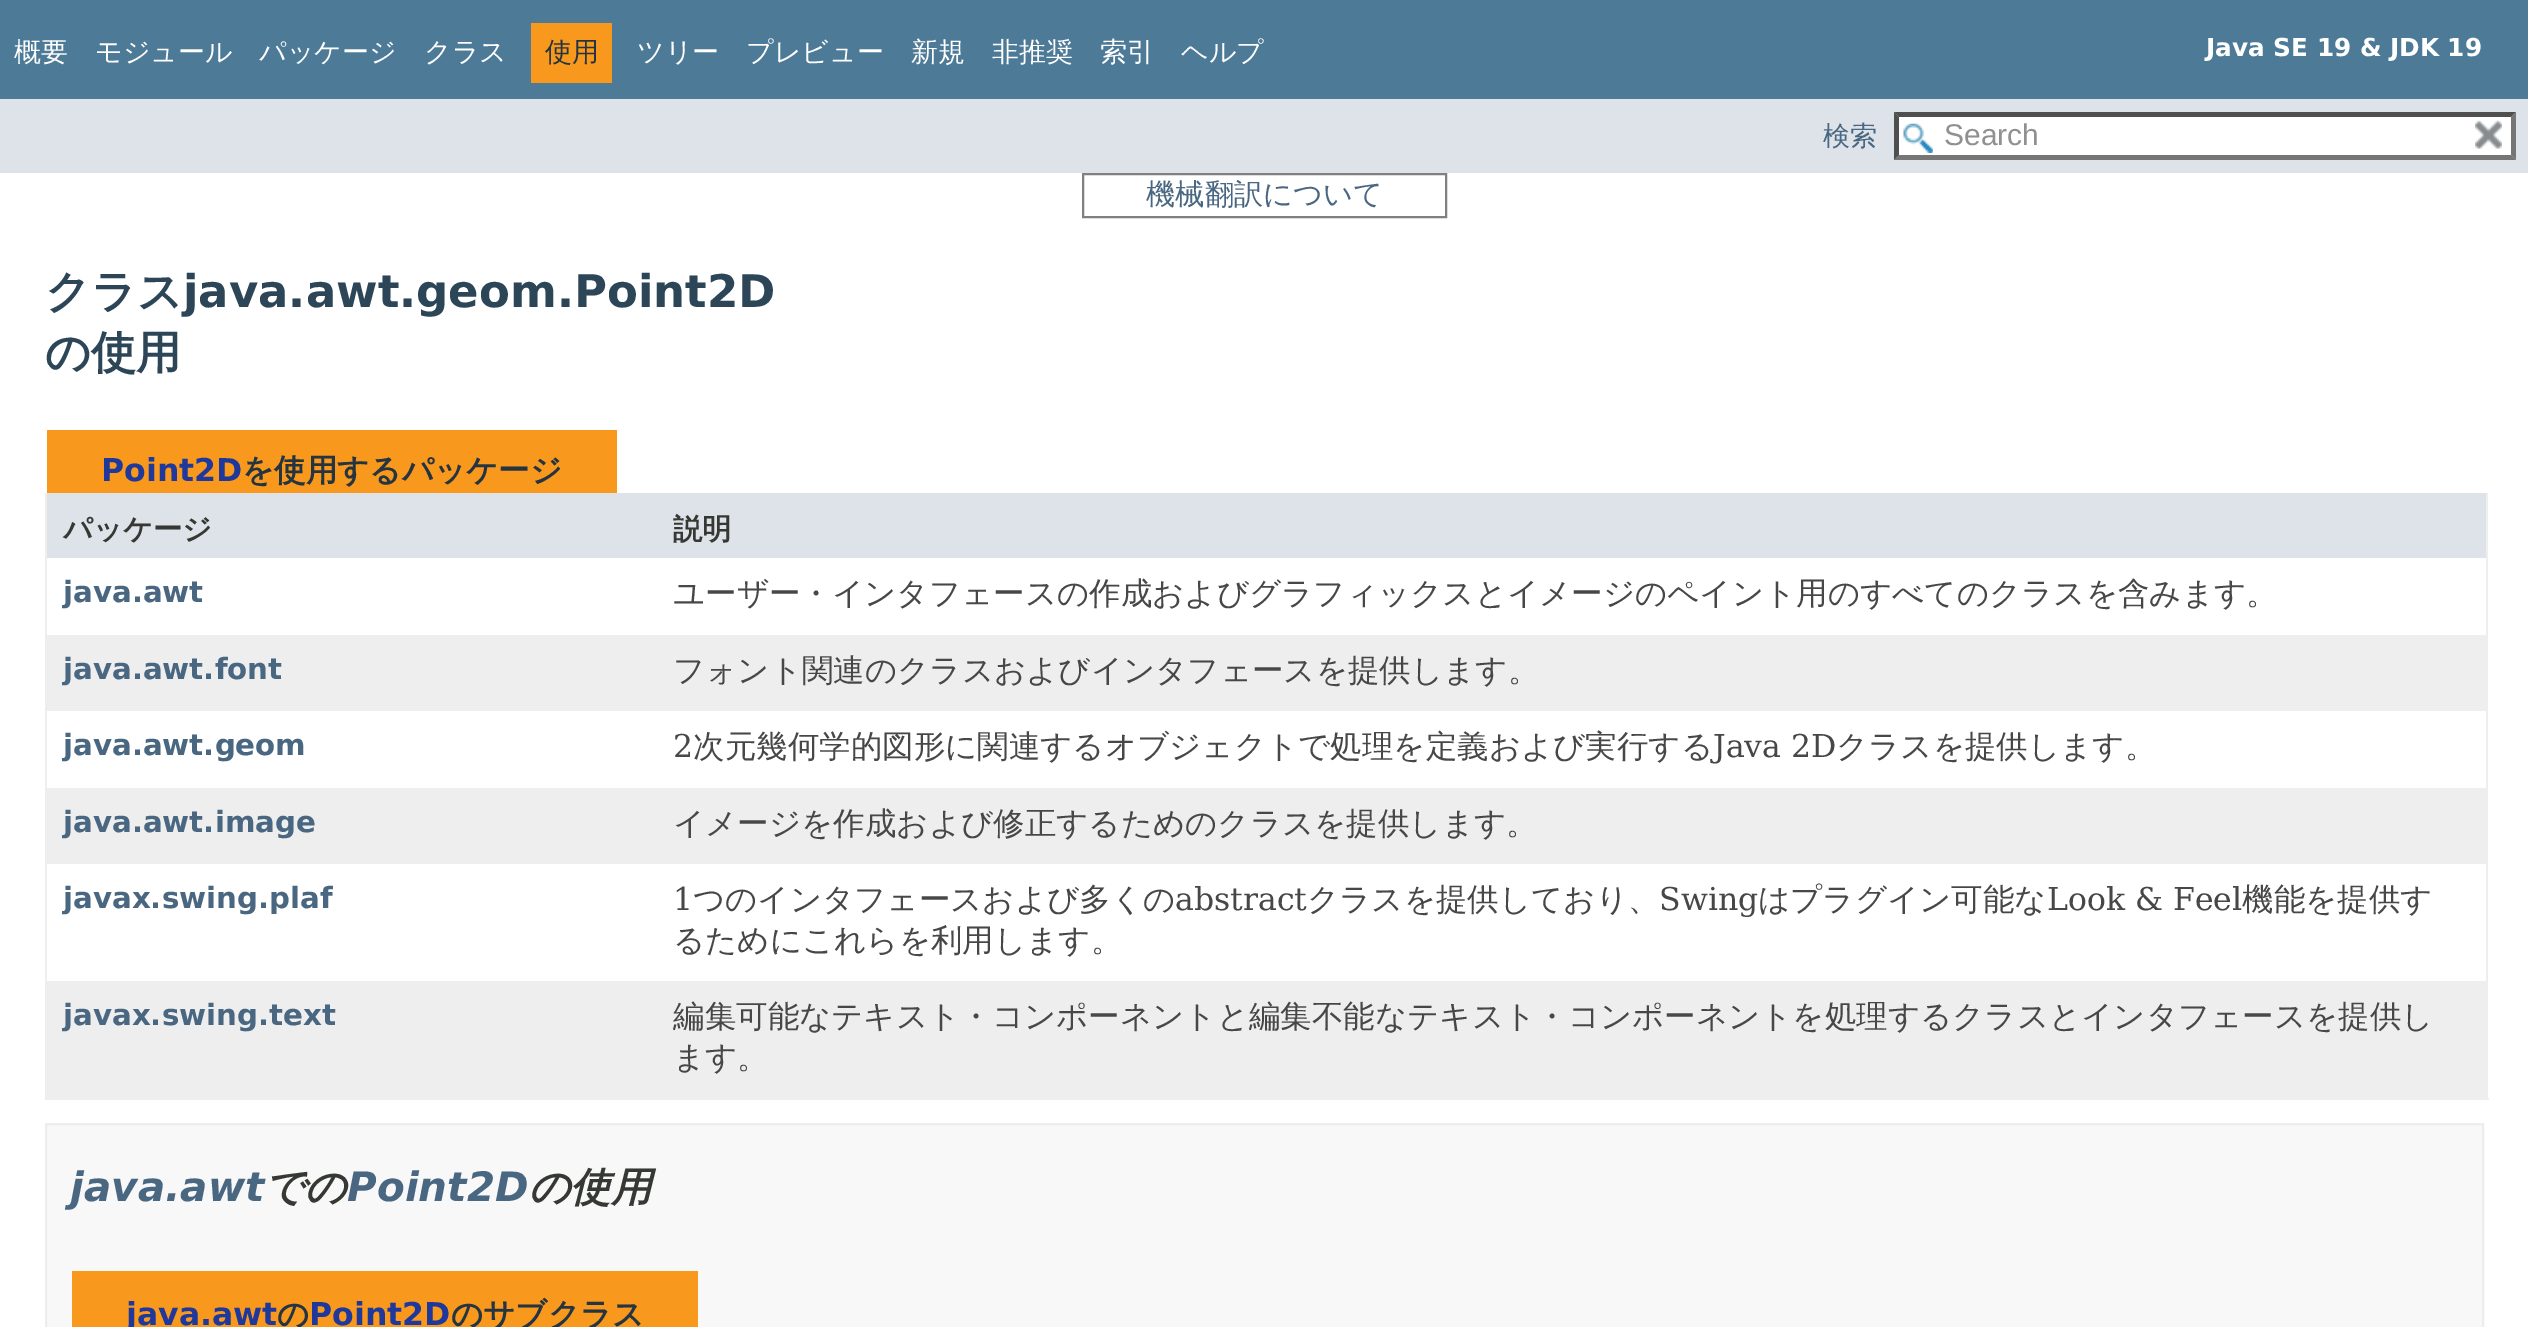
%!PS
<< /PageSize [2528 1327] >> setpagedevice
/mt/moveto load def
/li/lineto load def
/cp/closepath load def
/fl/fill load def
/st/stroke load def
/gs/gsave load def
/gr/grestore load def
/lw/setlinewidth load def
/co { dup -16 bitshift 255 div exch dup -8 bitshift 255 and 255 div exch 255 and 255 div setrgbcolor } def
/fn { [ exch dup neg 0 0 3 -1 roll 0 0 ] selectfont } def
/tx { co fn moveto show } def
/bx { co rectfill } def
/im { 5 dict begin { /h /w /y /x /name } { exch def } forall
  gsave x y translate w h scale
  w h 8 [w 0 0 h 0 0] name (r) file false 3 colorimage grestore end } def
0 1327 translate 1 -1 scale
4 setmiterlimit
0 0 2528 1327 16#FFFFFF bx
0 0 2528 99 16#4D7A97 bx
531 23 81 60 16#F8981D bx
0 99 2528 74 16#DEE3E9 bx
1895 113 621 47 16#FFFFFF bx
(media/1.raw) 1903 123 30 30 im
16#4F4F4F co
1894 112 mt 2516 112 li 2511 117 li 1899 117 li cp fl
16#767676 co
2516 112 mt 2516 160 li 2511 155 li 2511 117 li cp fl
2516 160 mt 1894 160 li 1899 155 li 2511 155 li cp fl
16#4F4F4F co
1894 160 mt 1894 112 li 1899 117 li 1899 155 li cp fl
(media/2.raw) 2475 120 27 29 im
16#808080 co
2 lw
1083 174 363 43 rectstroke
47 430 570 63 16#F8981D bx
2486 493 2 607 16#EEEEEE bx
45 1098 2444 2 16#EEEEEE bx
45 493 2 607 16#EEEEEE bx
47 493 2439 65 16#DEE3E9 bx
47 635 2439 76 16#EEEEEF bx
47 788 2439 76 16#EEEEEF bx
47 981 2439 117 16#EEEEEF bx
16#F8F8F8 co
46 1124 mt 2483 1124 li 2483 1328 li 46 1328 li cp gs fl gr
16#EDEDED co
st
72 1271 626 56 16#F8981D bx
(概要) 14 61 /WenQuanYiZenHei-Medium 27 16#FFFFFF tx
(モジュール) 95 61 /WenQuanYiZenHei-Medium 27 16#FFFFFF tx
(パッケージ) 259 61 /WenQuanYiZenHei-Medium 27 16#FFFFFF tx
(クラス) 424 61 /WenQuanYiZenHei-Medium 27 16#FFFFFF tx
(使用) 545 61 /WenQuanYiZenHei-Medium 27 16#253441 tx
(ツリー) 637 61 /WenQuanYiZenHei-Medium 27 16#FFFFFF tx
(プレビュー) 746 61 /WenQuanYiZenHei-Medium 27 16#FFFFFF tx
(新規) 911 61 /WenQuanYiZenHei-Medium 27 16#FFFFFF tx
(非推奨) 992 61 /WenQuanYiZenHei-Medium 27 16#FFFFFF tx
(索引) 1100 61 /WenQuanYiZenHei-Medium 27 16#FFFFFF tx
(ヘルプ) 1181 61 /WenQuanYiZenHei-Medium 27 16#FFFFFF tx
(Java SE 19 & JDK 19) 2206 56 /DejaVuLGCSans-Bold 24.75 16#FFFFFF tx
(検索) 1823 145 /WenQuanYiZenHei-Medium 27 16#4A6782 tx
(Search) 1944 145 /LiberationSans-Regular 30 16#909090 tx
(機械翻訳について) 1146 204 /WenQuanYiZenHei-Medium 29.25 16#4A6782 tx
(クラス) 45 307 /WenQuanYiZenHei-Bold 45 16#2C4557 tx
(java.awt.geom.Point2D) 183 307 /DejaVuLGCSans-Bold 45 16#2C4557 tx
(の使用) 45 368 /WenQuanYiZenHei-Bold 45 16#2C4557 tx
(Point2D) 101 481 /DejaVuLGCSans-Bold 31.5 16#1F389C tx
(を使用するパッケージ) 242 481 /WenQuanYiZenHei-Bold 31.5 16#253441 tx
(パッケージ) 63 539 /WenQuanYiZenHei-Bold 29.25 16#353833 tx
(説明) 673 539 /WenQuanYiZenHei-Bold 29.25 16#353833 tx
(java.awt) 63 602 /DejaVuLGCSans-Bold 29.25 16#4A6782 tx
(ユーザー・インタフェースの作成およびグラフィックスとイメージのペイント用のすべてのクラスを含みます。) 673 604 /WenQuanYiZenHei-Medium 31.5 16#474747 tx
(java.awt.font) 63 679 /DejaVuLGCSans-Bold 29.25 16#4A6782 tx
(フォント関連のクラスおよびインタフェースを提供します。) 673 681 /WenQuanYiZenHei-Medium 31.5 16#474747 tx
(java.awt.geom) 63 755 /DejaVuLGCSans-Bold 29.25 16#4A6782 tx
(2) 673 757 /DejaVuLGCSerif-Regular 31.5 16#474747 tx
(次元幾何学的図形に関連するオブジェクトで処理を定義および実行する) 693 757 /WenQuanYiZenHei-Medium 31.5 16#474747 tx
(Java 2D) 1713 757 /DejaVuLGCSerif-Regular 31.5 16#474747 tx
(クラスを提供します。) 1836 757 /WenQuanYiZenHei-Medium 31.5 16#474747 tx
(java.awt.image) 63 832 /DejaVuLGCSans-Bold 29.25 16#4A6782 tx
(イメージを作成および修正するためのクラスを提供します。) 673 834 /WenQuanYiZenHei-Medium 31.5 16#474747 tx
(javax.swing.plaf) 63 908 /DejaVuLGCSans-Bold 29.25 16#4A6782 tx
(1) 673 910 /DejaVuLGCSerif-Regular 31.5 16#474747 tx
(つのインタフェースおよび多くの) 693 910 /WenQuanYiZenHei-Medium 31.5 16#474747 tx
(abstract) 1175 910 /DejaVuLGCSerif-Regular 31.5 16#474747 tx
(クラスを提供しており、) 1307 910 /WenQuanYiZenHei-Medium 31.5 16#474747 tx
(Swing) 1659 910 /DejaVuLGCSerif-Regular 31.5 16#474747 tx
(はプラグイン可能な) 1758 910 /WenQuanYiZenHei-Medium 31.5 16#474747 tx
(Look & Feel) 2047 910 /DejaVuLGCSerif-Regular 31.5 16#474747 tx
(機能を提供す) 2242 910 /WenQuanYiZenHei-Medium 31.5 16#474747 tx
(るためにこれらを利用します。) 673 951 /WenQuanYiZenHei-Medium 31.5 16#474747 tx
(javax.swing.text) 63 1025 /DejaVuLGCSans-Bold 29.25 16#4A6782 tx
(編集可能なテキスト・コンポーネントと編集不能なテキスト・コンポーネントを処理するクラスとインタフェースを提供し) 673 1027 /WenQuanYiZenHei-Medium 31.5 16#474747 tx
(ます。) 673 1068 /WenQuanYiZenHei-Medium 31.5 16#474747 tx
(java.awt) 70 1201 /DejaVuLGCSans-BoldItalic 40.5 16#4A6782 tx
(での) 264 1201 /WenQuanYiZenHei-BoldItalic 40.5 16#353833 tx
(Point2D) 347 1201 /DejaVuLGCSans-BoldItalic 40.5 16#4A6782 tx
(の使用) 529 1201 /WenQuanYiZenHei-BoldItalic 40.5 16#353833 tx
(java.awt) 126 1325 /DejaVuLGCSans-Bold 31.5 16#1F389C tx
(の) 277 1325 /WenQuanYiZenHei-Bold 31.5 16#253441 tx
(Point2D) 309 1325 /DejaVuLGCSans-Bold 31.5 16#1F389C tx
(のサブクラス) 451 1325 /WenQuanYiZenHei-Bold 31.5 16#253441 tx
showpage
